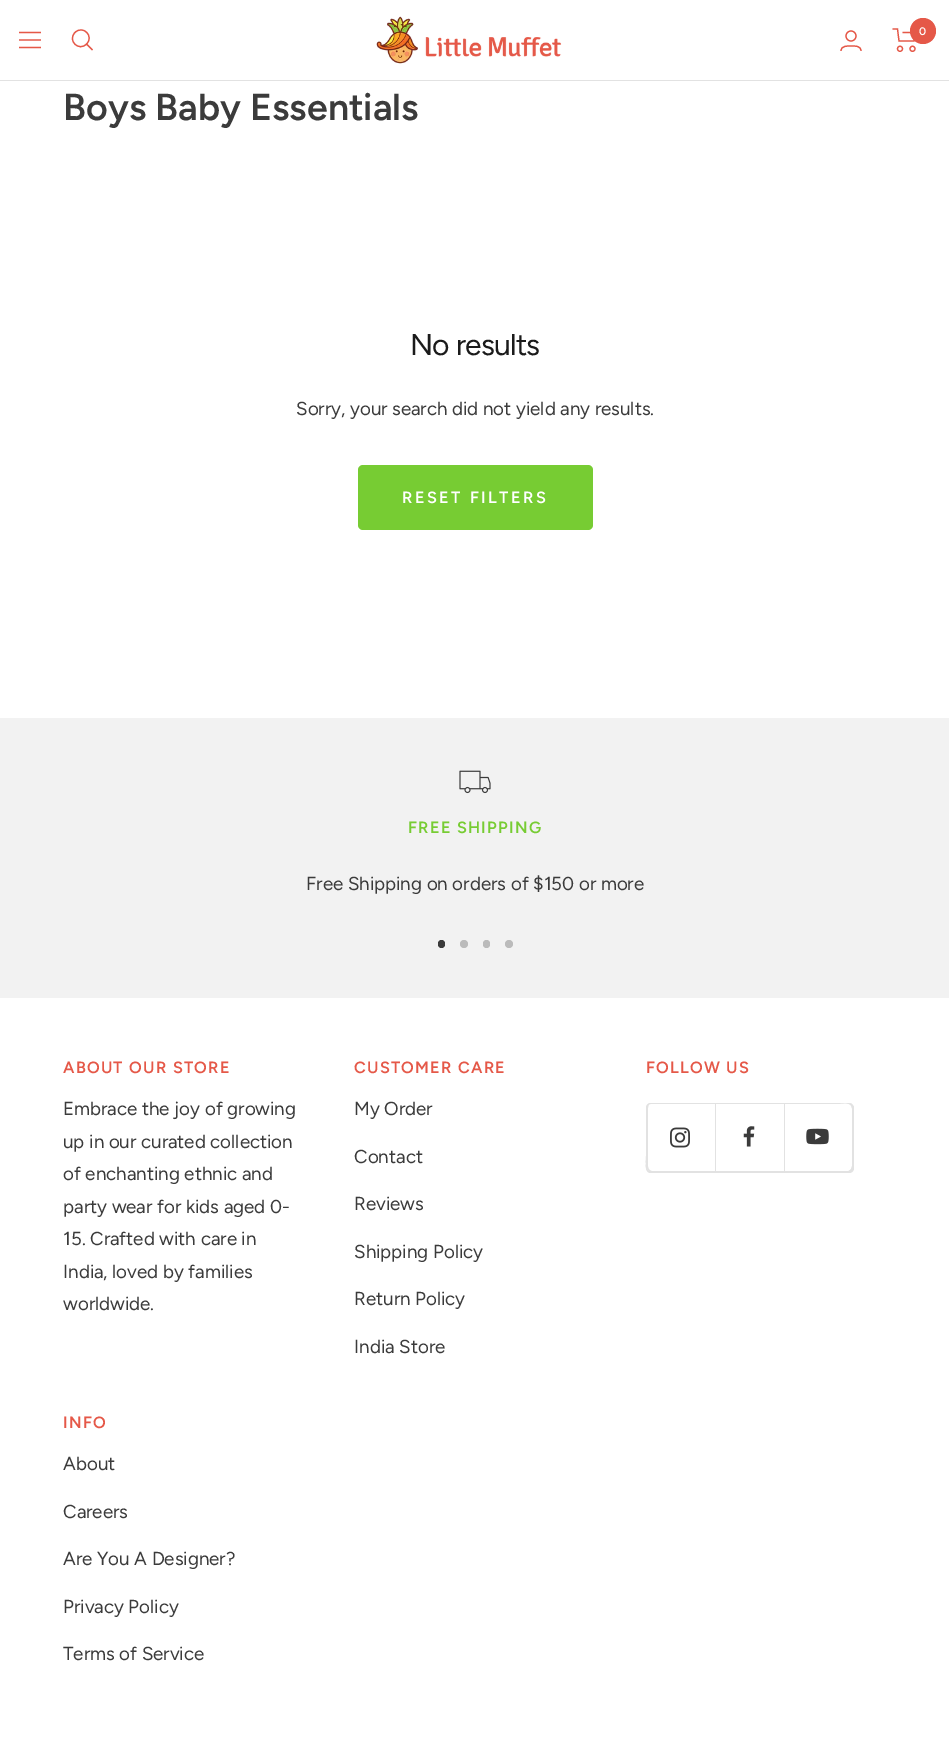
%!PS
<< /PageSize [949 1739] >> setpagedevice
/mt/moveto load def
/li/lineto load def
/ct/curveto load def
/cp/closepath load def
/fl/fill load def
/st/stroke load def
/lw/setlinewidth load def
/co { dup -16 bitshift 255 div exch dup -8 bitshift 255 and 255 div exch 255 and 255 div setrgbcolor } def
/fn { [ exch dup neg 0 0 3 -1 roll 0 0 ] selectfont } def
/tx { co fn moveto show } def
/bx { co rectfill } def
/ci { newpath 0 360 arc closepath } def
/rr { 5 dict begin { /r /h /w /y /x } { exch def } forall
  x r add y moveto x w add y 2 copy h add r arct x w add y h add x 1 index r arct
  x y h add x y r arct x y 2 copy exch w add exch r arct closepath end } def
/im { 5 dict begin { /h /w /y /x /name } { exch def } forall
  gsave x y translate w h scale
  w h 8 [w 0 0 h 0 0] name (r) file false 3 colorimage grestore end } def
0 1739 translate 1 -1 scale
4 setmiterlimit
0 0 949 1739 16#FFFFFF bx
0 80 949 1 16#E2E2E2 bx
16#E55848 co
1.2 lw
19 32.5 mt 41 32.5 li 19 47.5 mt 41 47.5 li cp 19 40 mt 41 40 li cp st
86.5 44 mt 94.5 36.5 83 24.5 75 32.5 ct 67 40.5 79 52 86.5 44 ct cp 86.5 44 mt 92.5 50 li st
(media/1.raw) 376 16 186 48 im
851 36 5 ci st
841 51 mt 841 45.5 847.5 46 851 46 ct 855 46 861 45.5 861 51 ct st
892.5 29 mt 897.5 29 li 899 41 li 914 41 li 916 32.5 li 902.5 32.5 li st
900 48.8 2.5 ci st
912.5 48.8 2.5 ci st
923 31 13 ci fl
16#77CC33 co
358 465 235 65 5 rr fl
0 718 949 280 16#F2F2F2 bx
(media/2.raw) 459 770 32 24 im
16#3B3B3B co
438 940 7 8 3.5 rr fl
16#BBBBBB co
464 944 4 ci fl
483 940 7 8 3.5 rr fl
509 944 4 ci fl
16#E2E2E2 co
649 1171 mt 650 1172 651 1173 653 1173 ct 716 1173 li 716 1104 li 715 1104 li 715 1171 li 651 1171 li cp fl
646 1107 mt 646 1158 li 646 1162 644 1172 650 1173 ct 715 1173 li 715 1171 li 650 1171 li 644 1170 646 1160 646 1156 ct cp fl
715 1103 1 1 16#E2E2E2 bx
651 1104 mt 715 1104 li 715 1103 li 651 1103 li 648 1103 646 1105 646 1108 ct 646 1109 li 646 1106 648 1104 651 1104 ct cp fl
650 1103 mt 648 1104 646 1106 646 1108 ct 646 1166 li 646 1169 648 1171 651 1171 ct 652 1171 li 650 1171 648 1169 648 1166 ct 648 1108 li 648 1106 649 1104 650 1103 ct cp fl
(media/3.raw) 670 1127 20 21 im
716 1171 mt 716 1173 li 785 1173 li 785 1104 li 784 1104 li 784 1171 li cp fl
715 1103 70 1 16#E2E2E2 bx
(media/4.raw) 743 1126 12 21 im
785 1171 mt 785 1173 li 849 1173 li 852 1173 854 1171 854 1168 ct 854 1109 li 854 1107 853 1106 852 1105 ct 852 1108 li 852 1166 li 852 1169 850 1171 848 1171 ct cp fl
849 1171 mt 852 1171 854 1169 854 1166 ct 854 1108 li 854 1106 852 1103 850 1103 ct 851 1104 852 1106 852 1108 ct 852 1166 li 852 1168 851 1170 849 1171 ct cp fl
784 1104 mt 837 1104 li 842 1104 852 1101 852 1109 ct 852 1169 li 853 1168 853 1167 853 1166 ct 853 1108 li 853 1105 851 1103 848 1103 ct 784 1103 li cp fl
(media/5.raw) 806 1128 23 17 im
(0) 919 35 /Figtree-SemiBold 11 16#FFFFFF tx
(Boys Baby Essentials) 63 120 /Figtree-SemiBold 37.5 16#3B3B3B tx
/Figtree-Regular 30 fn
16#1B1B1B co
410 355 mt -.75 0 (No results) ashow
(Sorry, your search did not yield any results.) 296 415 /Figtree-Regular 18.75 16#3B3B3B tx
/Figtree-SemiBold 16.25 fn
16#FFFFFF co
402 503 mt 2.5 0 (RESET FILTERS) ashow
16#77CC33 co
408 833 mt 1.25 0 (FREE SHIPPING) ashow
(Free Shipping on orders of $150 or more) 306 890 /Figtree-Regular 18.75 16#3B3B3B tx
/Figtree-SemiBold 16.25 fn
16#E55848 co
63 1073 mt 1.25 0 (ABOUT OUR STORE) ashow
(Embrace the joy of growing) 63 1115 /Figtree-Regular 18.75 16#3B3B3B tx
(up in our curated collection) 63 1148 /Figtree-Regular 18.75 16#3B3B3B tx
(of enchanting ethnic and) 63 1180 /Figtree-Regular 18.75 16#3B3B3B tx
(party wear for kids aged 0-) 63 1213 /Figtree-Regular 18.75 16#3B3B3B tx
(15. Crafted with care in) 63 1245 /Figtree-Regular 18.75 16#3B3B3B tx
(India, loved by families) 63 1278 /Figtree-Regular 18.75 16#3B3B3B tx
(worldwide.) 63 1310 /Figtree-Regular 18.75 16#3B3B3B tx
/Figtree-SemiBold 16.25 fn
16#E55848 co
354 1073 mt 1.25 0 (CUSTOMER CARE) ashow
(My Order) 354 1115 /Figtree-Regular 18.75 16#3B3B3B tx
(Contact) 354 1163 /Figtree-Regular 18.75 16#3B3B3B tx
(Reviews) 354 1210 /Figtree-Regular 18.75 16#3B3B3B tx
(Shipping Policy) 354 1258 /Figtree-Regular 18.75 16#3B3B3B tx
(Return Policy) 354 1305 /Figtree-Regular 18.75 16#3B3B3B tx
(India Store) 354 1353 /Figtree-Regular 18.75 16#3B3B3B tx
/Figtree-SemiBold 16.25 fn
16#E55848 co
646 1073 mt 1.25 0 (FOLLOW US) ashow
63 1428 mt 1.25 0 (INFO) ashow
(About) 63 1470 /Figtree-Regular 18.75 16#3B3B3B tx
(Careers) 63 1518 /Figtree-Regular 18.75 16#3B3B3B tx
(Are You A Designer?) 63 1565 /Figtree-Regular 18.75 16#3B3B3B tx
(Privacy Policy) 63 1613 /Figtree-Regular 18.75 16#3B3B3B tx
(Terms of Service) 63 1660 /Figtree-Regular 18.75 16#3B3B3B tx
showpage
